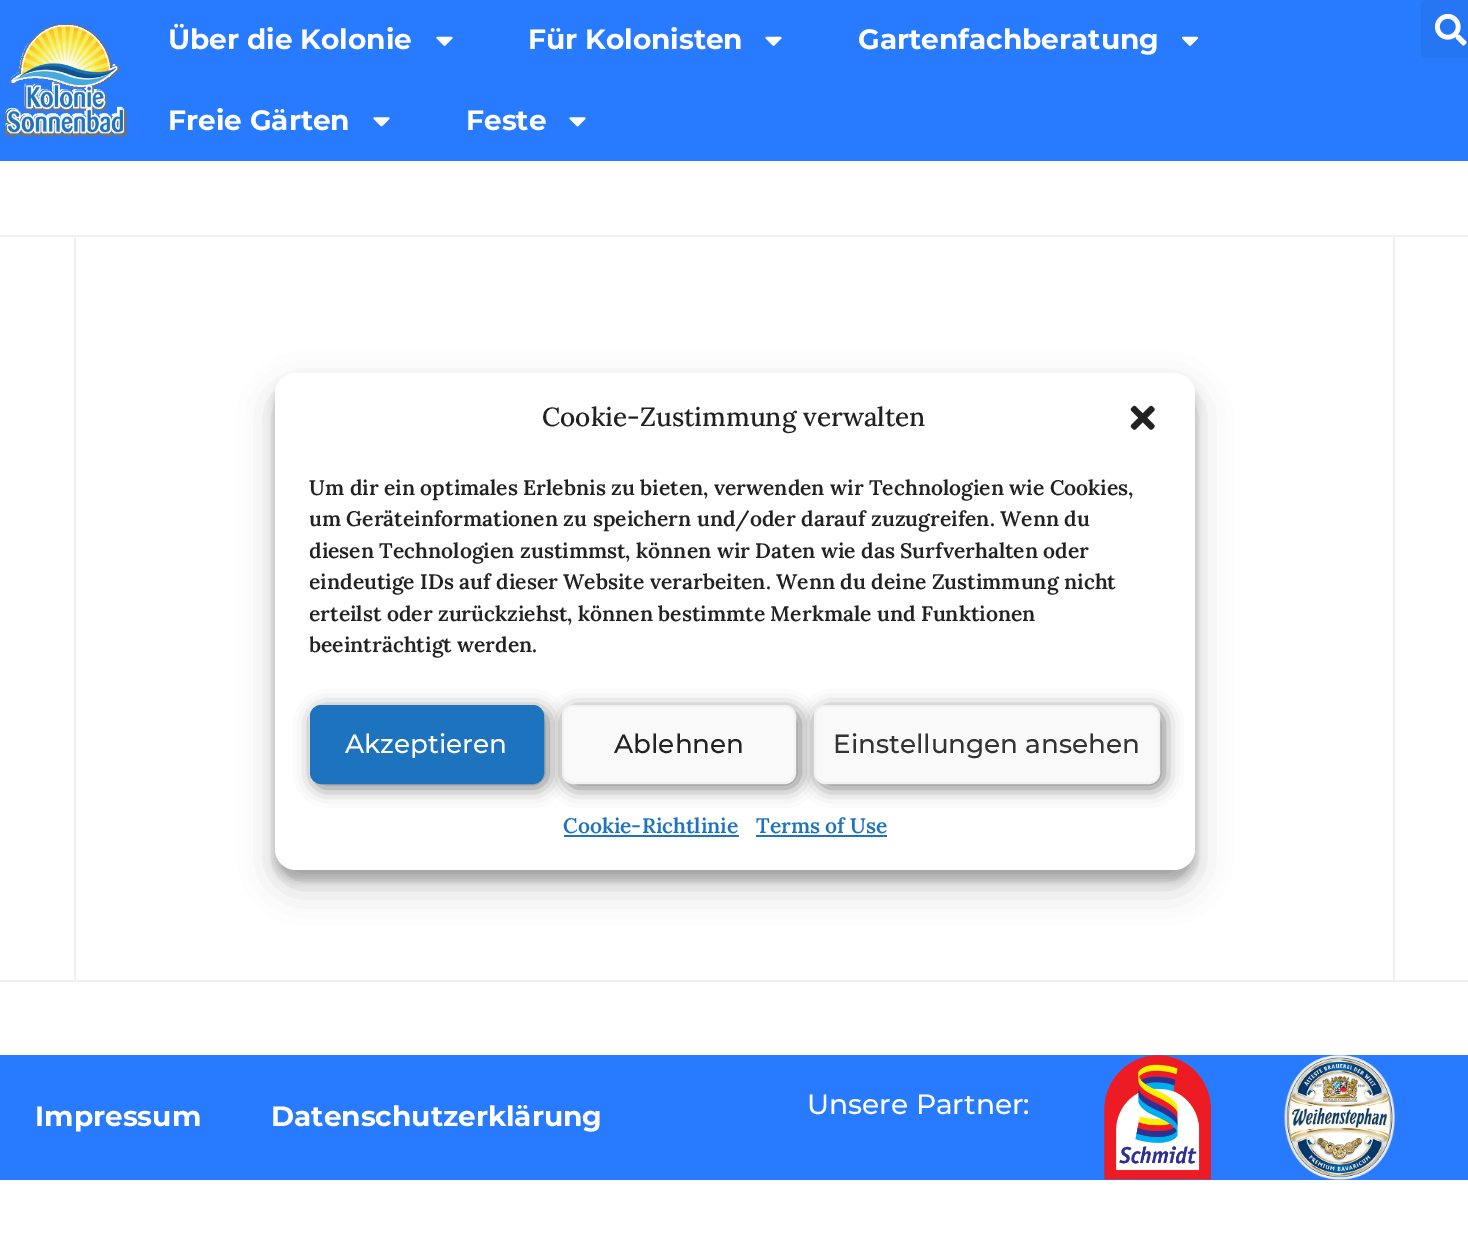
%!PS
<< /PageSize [1468 1240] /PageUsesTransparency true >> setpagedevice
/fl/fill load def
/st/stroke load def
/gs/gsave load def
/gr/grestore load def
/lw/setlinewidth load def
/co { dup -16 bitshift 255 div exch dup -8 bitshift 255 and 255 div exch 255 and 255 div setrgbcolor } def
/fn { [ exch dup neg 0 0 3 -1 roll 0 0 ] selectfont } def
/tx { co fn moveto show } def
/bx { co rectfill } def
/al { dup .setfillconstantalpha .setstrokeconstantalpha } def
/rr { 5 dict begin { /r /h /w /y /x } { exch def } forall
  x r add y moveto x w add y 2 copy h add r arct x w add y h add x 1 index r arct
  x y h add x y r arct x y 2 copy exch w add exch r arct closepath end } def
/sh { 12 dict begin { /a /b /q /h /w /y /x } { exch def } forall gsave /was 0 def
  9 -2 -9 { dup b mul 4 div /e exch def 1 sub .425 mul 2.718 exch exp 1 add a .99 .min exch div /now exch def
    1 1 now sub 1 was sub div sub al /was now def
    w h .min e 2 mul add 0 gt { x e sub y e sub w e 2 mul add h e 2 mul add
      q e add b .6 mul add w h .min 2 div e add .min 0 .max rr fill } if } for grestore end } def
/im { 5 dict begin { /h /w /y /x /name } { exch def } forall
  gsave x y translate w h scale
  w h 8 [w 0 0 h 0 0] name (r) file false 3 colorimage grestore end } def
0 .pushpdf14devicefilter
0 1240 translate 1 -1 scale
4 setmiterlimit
0 0 1468 1240 16#FFFFFF bx
0 0 1468 161 16#287BFF bx
(media/1.raw) 4 24 123 113 im
(media/2.raw) 436 36 17 10 im
(media/2.raw) 765 36 17 10 im
(media/3.raw) 1181 36 18 10 im
(media/4.raw) 373 117 17 10 im
(media/4.raw) 569 117 17 10 im
16#2675F2 co
1421 0 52 58 5 rr fl
(media/5.raw) 1435 14 32 32 im
0 235 1468 2 16#F0F0F0 bx
0 980 1468 2 16#F0F0F0 bx
1393 236 2 744 16#F0F0F0 bx
74 236 2 744 16#F0F0F0 bx
16#000000 co
275 383 920 497 21 5 .23 sh
275 390 920 497 21 17.5 .19 sh
16#FFFFFF co
275 373 920 497 21 rr fl
(media/6.raw) 1130 405 25 25 im
16#000000 co
313 709 235 79 11 9 .5 sh
16#1E73BE co
311 706 232 77 10 rr gs fl gr
2 lw
st
16#000000 co
565 709 235 79 11 9 .5 sh
16#F9F9F9 co
563 706 232 77 10 rr gs fl gr
16#F2F2F2 co
st
16#000000 co
817 709 347 79 11 9 .5 sh
16#F9F9F9 co
815 706 344 77 10 rr gs fl gr
16#F2F2F2 co
st
564 835 175 2 16#1E73BE bx
756 835 131 2 16#1E73BE bx
0 1055 1468 125 16#287BFF bx
(media/7.raw) 1104 1055 107 125 im
(media/8.raw) 1284 1055 111 125 im
(Über die Kolonie) 168 49 /Montserrat-Bold 28 16#FFFFFF tx
(Für Kolonisten) 528 49 /Montserrat-Bold 28 16#FFFFFF tx
(Gartenfachberatung) 858 49 /Montserrat-Bold 28 16#FFFFFF tx
(Freie Gärten) 168 130 /Montserrat-Bold 28 16#FFFFFF tx
(Feste) 466 130 /Montserrat-Bold 28 16#FFFFFF tx
(Cookie-Zustimmung verwalten) 542 426 /Lora-Medium 26.25 16#222222 tx
(Um dir ein optimales Erlebnis zu bieten, verwenden wir Technologien wie Cookies,) 309 495 /Lora-SemiBold 21 16#222222 tx
gs
310 473 850 197 rectclip
(um Geräteinformationen zu speichern und/oder darauf zuzugreifen. Wenn du) 309 526 /Lora-SemiBold 21 16#222222 tx
(diesen Technologien zustimmst, können wir Daten wie das Surfverhalten oder) 309 558 /Lora-SemiBold 21 16#222222 tx
(eindeutige IDs auf dieser Website verarbeiten. Wenn du deine Zustimmung nicht) 309 589 /Lora-SemiBold 21 16#222222 tx
(erteilst oder zurückziehst, können bestimmte Merkmale und Funktionen) 309 621 /Lora-SemiBold 21 16#222222 tx
(beeinträchtigt werden.) 309 652 /Lora-SemiBold 21 16#222222 tx
gr
(Akzeptieren) 345 753 /Montserrat-Medium 26.25 16#FFFFFF tx
(Ablehnen) 614 753 /Montserrat-Medium 26.25 16#222222 tx
(Einstellungen ansehen) 833 753 /Montserrat-Medium 26.25 16#333333 tx
(Cookie-Richtlinie) 563 833 /Lora-SemiBold 21 16#1E73BE tx
(Terms of Use) 756 833 /Lora-SemiBold 21 16#1E73BE tx
(Impressum) 35 1126 /Montserrat-Bold 28 16#FFFFFF tx
(Datenschutzerklärung) 271 1126 /Montserrat-Bold 28 16#FFFFFF tx
(Unsere Partner:) 807 1114 /Montserrat-Medium 28 16#FFFFFF tx
.poppdf14devicefilter showpage
